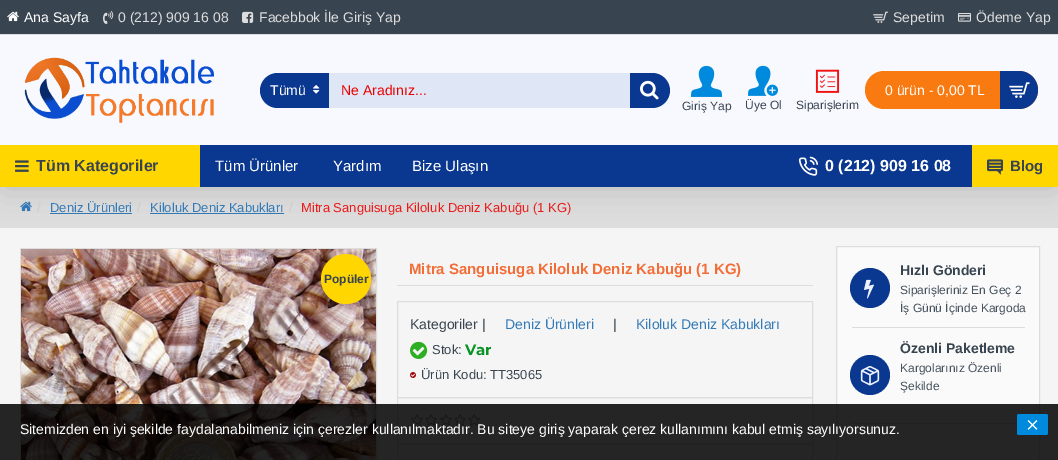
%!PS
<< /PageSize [1058 460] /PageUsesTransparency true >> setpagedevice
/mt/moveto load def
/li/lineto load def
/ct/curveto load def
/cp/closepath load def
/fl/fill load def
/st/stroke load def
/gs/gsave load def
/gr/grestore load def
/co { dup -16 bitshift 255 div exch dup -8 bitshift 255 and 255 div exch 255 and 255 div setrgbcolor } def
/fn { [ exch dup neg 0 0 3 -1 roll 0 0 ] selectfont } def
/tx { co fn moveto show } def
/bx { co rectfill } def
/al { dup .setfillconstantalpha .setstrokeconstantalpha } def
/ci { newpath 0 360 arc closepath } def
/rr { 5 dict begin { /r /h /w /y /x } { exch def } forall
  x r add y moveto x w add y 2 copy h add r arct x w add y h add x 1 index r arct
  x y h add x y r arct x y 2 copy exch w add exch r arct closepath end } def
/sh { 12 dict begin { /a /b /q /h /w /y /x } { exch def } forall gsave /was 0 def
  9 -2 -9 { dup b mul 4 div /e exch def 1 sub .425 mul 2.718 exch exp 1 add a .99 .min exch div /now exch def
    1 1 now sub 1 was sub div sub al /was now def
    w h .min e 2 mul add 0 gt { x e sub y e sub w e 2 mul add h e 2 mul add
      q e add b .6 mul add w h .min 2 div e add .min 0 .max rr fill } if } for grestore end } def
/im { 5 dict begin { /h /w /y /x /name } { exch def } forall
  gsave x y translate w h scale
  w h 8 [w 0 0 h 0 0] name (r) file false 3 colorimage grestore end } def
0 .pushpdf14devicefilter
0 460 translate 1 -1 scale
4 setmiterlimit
0 0 1058 460 16#F5F5F5 bx
0 187 1058 41 16#DDDDDD bx
(media/16.raw) 20 201 12 11 im
50 213 82 1 16#337AB7 bx
150 213 134 1 16#337AB7 bx
16#000000 co
5 10 1048 177 0 15 .15 sh
0 35 1058 110 16#F7F9FF bx
0 0 1058 34 16#38444F bx
0 34 1058 1 16#DDDDDD bx
(media/1.raw) 7 11 12 11 im
(media/2.raw) 103 11 11 13 im
(media/3.raw) 242 11 12 12 im
(media/4.raw) 873 11 15 12 im
(media/5.raw) 958 13 13 9 im
(media/6.raw) 24 57 190 66 im
16#0A378F co
277.5 73 mt 329 73 li 329 108 li 277.5 108 li 268 108 260 100 260 90.5 ct 260 81 268 73 277.5 73 ct cp fl
(media/7.raw) 313 85 7 9 im
329 73 301 35 16#DFE7F7 bx
16#0A378F co
630 73 mt 652.5 73 li 662 73 670 81 670 90.5 ct 670 100 662 108 652.5 108 ct 630 108 li cp fl
(media/8.raw) 640 80 19 20 im
16#F87A10 co
865 71 173 38 19 rr fl
16#0A378F co
1000 71 mt 1019 71 li 1029.5 71 1038 79.5 1038 90 ct 1038 100.5 1029.5 109 1019 109 ct 1000 109 li cp fl
(media/9.raw) 1009 82 21 16 im
(media/10.raw) 691 65 31 32 im
(media/11.raw) 748 65 30 31 im
(media/12.raw) 815 69 25 24 im
200 145 772 42 16#0A378F bx
0 145 200 42 16#FFD600 bx
(media/13.raw) 15 160 14 12 im
(media/14.raw) 798 156 20 20 im
972 145 86 42 16#FFD600 bx
(media/15.raw) 987 159 16 16 im
16#DDDDDD co
20.5 248.5 356 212 rectstroke
(media/17.raw) 21 249 355 211 im
16#FFD600 co
346 279 25 ci fl
397 285 416 1 16#DDDDDD bx
397.5 397.5 415 46 rectstroke
397.5 301.5 415 96 rectstroke
(media/18.raw) 410 341 18 18 im
(media/19.raw) 410 372 6 6 im
(media/20.raw) 411 414 12 12 im
(media/20.raw) 425 414 12 12 im
(media/20.raw) 440 414 12 12 im
(media/20.raw) 454 414 12 12 im
(media/20.raw) 468 414 12 12 im
397.5 443.5 415 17 rectstroke
16#FAFAFA co
836.5 246.5 mt 1039.5 246.5 li 1039.5 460.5 li 836.5 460.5 li cp gs fl gr
16#DDDDDD co
st
852 327 173 1 16#DDDDDD bx
16#0A378F co
870 288 20 ci fl
(media/21.raw) 864 279 10 20 im
852 423 173 1 16#DDDDDD bx
16#0A378F co
870 375 20 ci fl
(media/22.raw) 860 366 20 20 im
0.85 al
0 404 1058 56 16#000000 bx
1 al
16#008ADD co
1017 414 31 21 2 rr fl
(media/23.raw) 1027 420 11 10 im
(Ana Sayfa) 24 22 /LiberationSans-Regular 14 16#FFFFFF tx
(0 \(212\) 909 16 08) 118 22 /LiberationSans-Regular 14 16#DDDDDD tx
(Facebbok İle Giriş Yap) 259 22 /LiberationSans-Regular 14 16#DDDDDD tx
(Sepetim) 893 22 /LiberationSans-Regular 14 16#DDDDDD tx
(Ödeme Yap) 976 22 /LiberationSans-Regular 14 16#DDDDDD tx
(Tümü) 270 95 /LiberationSans-Regular 14 16#FFFFFF tx
(Ne Aradınız...) 341 95 /LiberationSans-Regular 14 16#EB0000 tx
(0 ürün - 0,00 TL) 885 95 /LiberationSans-Regular 14 16#FFFFFF tx
(Giriş Yap) 682 110 /LiberationSans-Regular 12 16#38444F tx
(Üye Ol) 745 109 /LiberationSans-Regular 12 16#38444F tx
(Siparişlerim) 796 109 /LiberationSans-Regular 12 16#38444F tx
(Tüm Kategoriler) 36 171 /LiberationSans-Bold 16 16#38444F tx
(Tüm Ürünler) 215 171 /LiberationSans-Regular 15 16#FFFFFF tx
(Yardım) 333 171 /LiberationSans-Regular 15 16#FFFFFF tx
(Bize Ulaşın) 412 171 /LiberationSans-Regular 15 16#FFFFFF tx
(0 \(212\) 909 16 08) 825 171 /LiberationSans-Bold 16 16#FFFFFF tx
(Blog) 1010 171 /LiberationSans-Bold 15 16#38444F tx
(/) 37 212 /LiberationSans-Regular 14 16#CCCCCC tx
(Deniz Ürünleri) 50 212 /LiberationSans-Regular 13 16#337AB7 tx
(/) 137 212 /LiberationSans-Regular 14 16#CCCCCC tx
(Kiloluk Deniz Kabukları) 150 212 /LiberationSans-Regular 13 16#337AB7 tx
(/) 289 212 /LiberationSans-Regular 14 16#CCCCCC tx
(Mitra Sanguisuga Kiloluk Deniz Kabuğu \(1 KG\)) 301 212 /LiberationSans-Regular 13 16#EB1A1A tx
(Popüler) 324 283 /LiberationSans-Bold 12 16#38444F tx
(Mitra Sanguisuga Kiloluk Deniz Kabuğu \(1 KG\)) 409 274 /LiberationSans-Bold 15 16#F36D37 tx
(Kategoriler |) 410 329 /LiberationSans-Regular 14 16#38444F tx
(Deniz Ürünleri) 505 329 /LiberationSans-Regular 14 16#337AB7 tx
(|) 613 329 /LiberationSans-Regular 14 16#38444F tx
(Kiloluk Deniz Kabukları) 636 329 /LiberationSans-Regular 14 16#337AB7 tx
(Stok:) 432 354 /LiberationSans-Regular 13 16#38444F tx
(Var) 465 355 /Montserrat-Thin 15 16#0A9426 tx
(Ürün Kodu:) 421 379 /LiberationSans-Regular 13 16#38444F tx
(TT35065) 490 379 /LiberationSans-Regular 13 16#38444F tx
(Hızlı Gönderi) 900 275 /LiberationSans-Bold 14 16#38444F tx
(Siparişleriniz En Geç 2) 900 294 /LiberationSans-Regular 12 16#45525E tx
(İş Günü İçinde Kargoda) 900 312 /LiberationSans-Regular 12 16#45525E tx
(Özenli Paketleme) 900 353 /LiberationSans-Bold 14 16#38444F tx
(Kargolarınız Özenli) 900 372 /LiberationSans-Regular 12 16#45525E tx
(Şekilde) 900 390 /LiberationSans-Regular 12 16#45525E tx
(Sitemizden en iyi şekilde faydalanabilmeniz için çerezler kullanılmaktadır. Bu siteye giriş yaparak çerez kullanımını kabul etmiş sayılıyorsunuz.) 20 434 /LiberationSans-Regular 14 16#FFFFFF tx
.poppdf14devicefilter showpage
